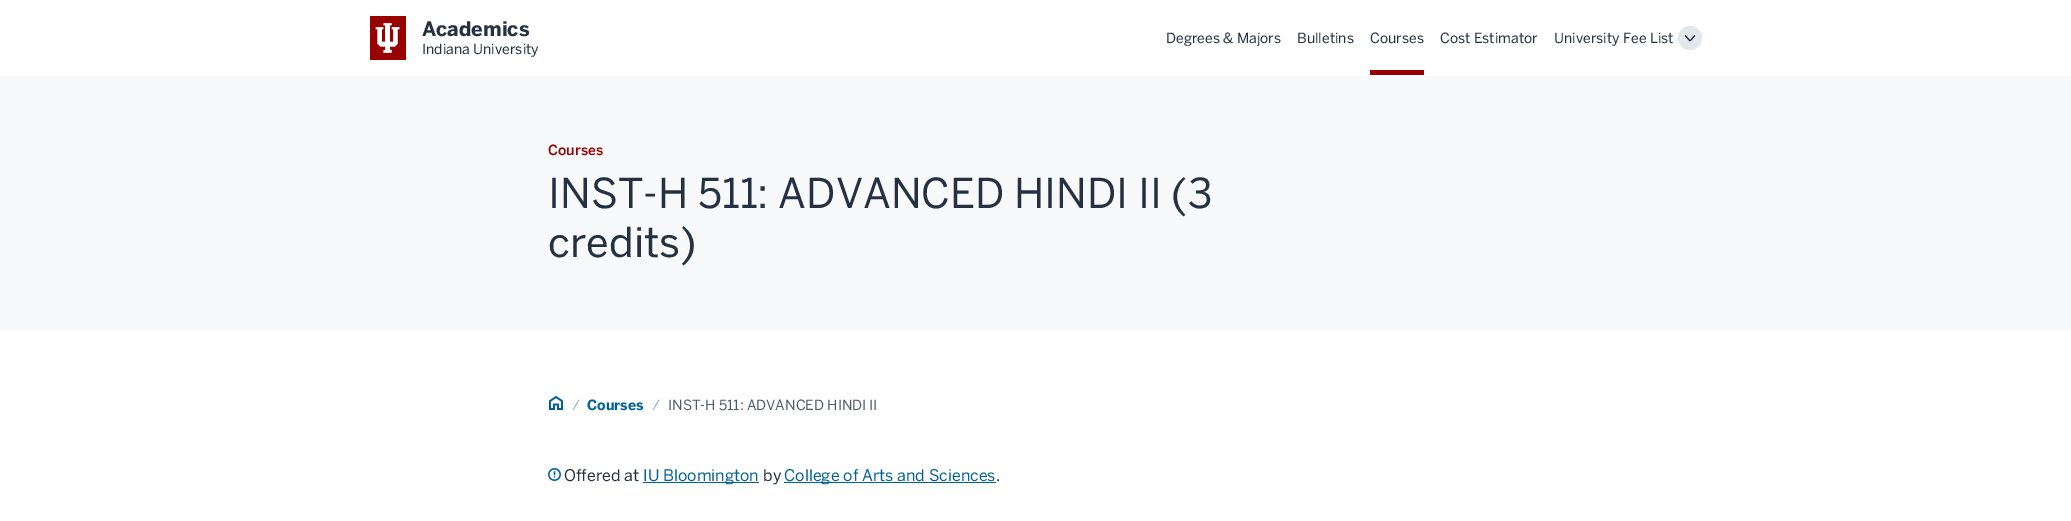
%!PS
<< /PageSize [2071 521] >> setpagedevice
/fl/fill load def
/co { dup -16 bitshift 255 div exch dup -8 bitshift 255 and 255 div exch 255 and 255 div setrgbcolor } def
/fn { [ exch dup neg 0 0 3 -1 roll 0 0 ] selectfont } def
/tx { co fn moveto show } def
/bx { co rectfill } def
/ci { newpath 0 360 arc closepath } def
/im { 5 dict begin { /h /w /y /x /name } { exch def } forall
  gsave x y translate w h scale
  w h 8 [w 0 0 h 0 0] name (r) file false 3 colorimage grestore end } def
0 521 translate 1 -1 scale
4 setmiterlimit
0 0 2071 521 16#FFFFFF bx
370 16 36 44 16#990000 bx
(media/1.raw) 375 23 25 30 im
1370 70 54 5 16#990000 bx
16#E2E7E9 co
1690 38 12 ci fl
(media/2.raw) 1684 35 12 7 im
0 76 2071 255 16#F8F9FA bx
(media/3.raw) 549 395 14 15 im
(media/4.raw) 548 468 13 13 im
643 482 116 1 16#006298 bx
784 482 212 1 16#006298 bx
(Academics) 422 36 /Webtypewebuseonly-Bold 20 16#243142 tx
(Indiana University) 422 54 /Webtypewebuseonly-Regular 14 16#243142 tx
(Degrees & Majors) 1166 43 /Webtypewebuseonly-Regular 14 16#243142 tx
(Bulletins) 1297 43 /Webtypewebuseonly-Regular 14 16#243142 tx
(Courses) 1370 43 /Webtypewebuseonly-Regular 14 16#243142 tx
(Cost Estimator) 1440 43 /Webtypewebuseonly-Regular 14 16#243142 tx
(University Fee List) 1554 43 /Webtypewebuseonly-Regular 14 16#243142 tx
(Courses) 548 155 /Webtypewebuseonly-Medium 14 16#990000 tx
(INST-H 511: ADVANCED HINDI II \(3) 548 208 /Webtypewebuseonly-Regular 41 16#243142 tx
(credits\)) 548 257 /Webtypewebuseonly-Regular 41 16#243142 tx
(/) 572 410 /Webtypewebuseonly-Regular 14 16#A0ABB4 tx
(Courses) 587 410 /Webtypewebuseonly-Bold 14 16#006298 tx
(/) 652 410 /Webtypewebuseonly-Regular 14 16#A0ABB4 tx
(INST-H 511: ADVANCED HINDI II) 668 410 /Webtypewebuseonly-Regular 14 16#4C5A69 tx
(Offered at) 564 481 /Webtypewebuseonly-Regular 16 16#243142 tx
(IU Bloomington) 643 481 /Webtypewebuseonly-Regular 16 16#006298 tx
(by) 763 481 /Webtypewebuseonly-Regular 16 16#243142 tx
(College of Arts and Sciences) 784 481 /Webtypewebuseonly-Regular 16 16#006298 tx
(.) 996 481 /Webtypewebuseonly-Regular 16 16#243142 tx
showpage
